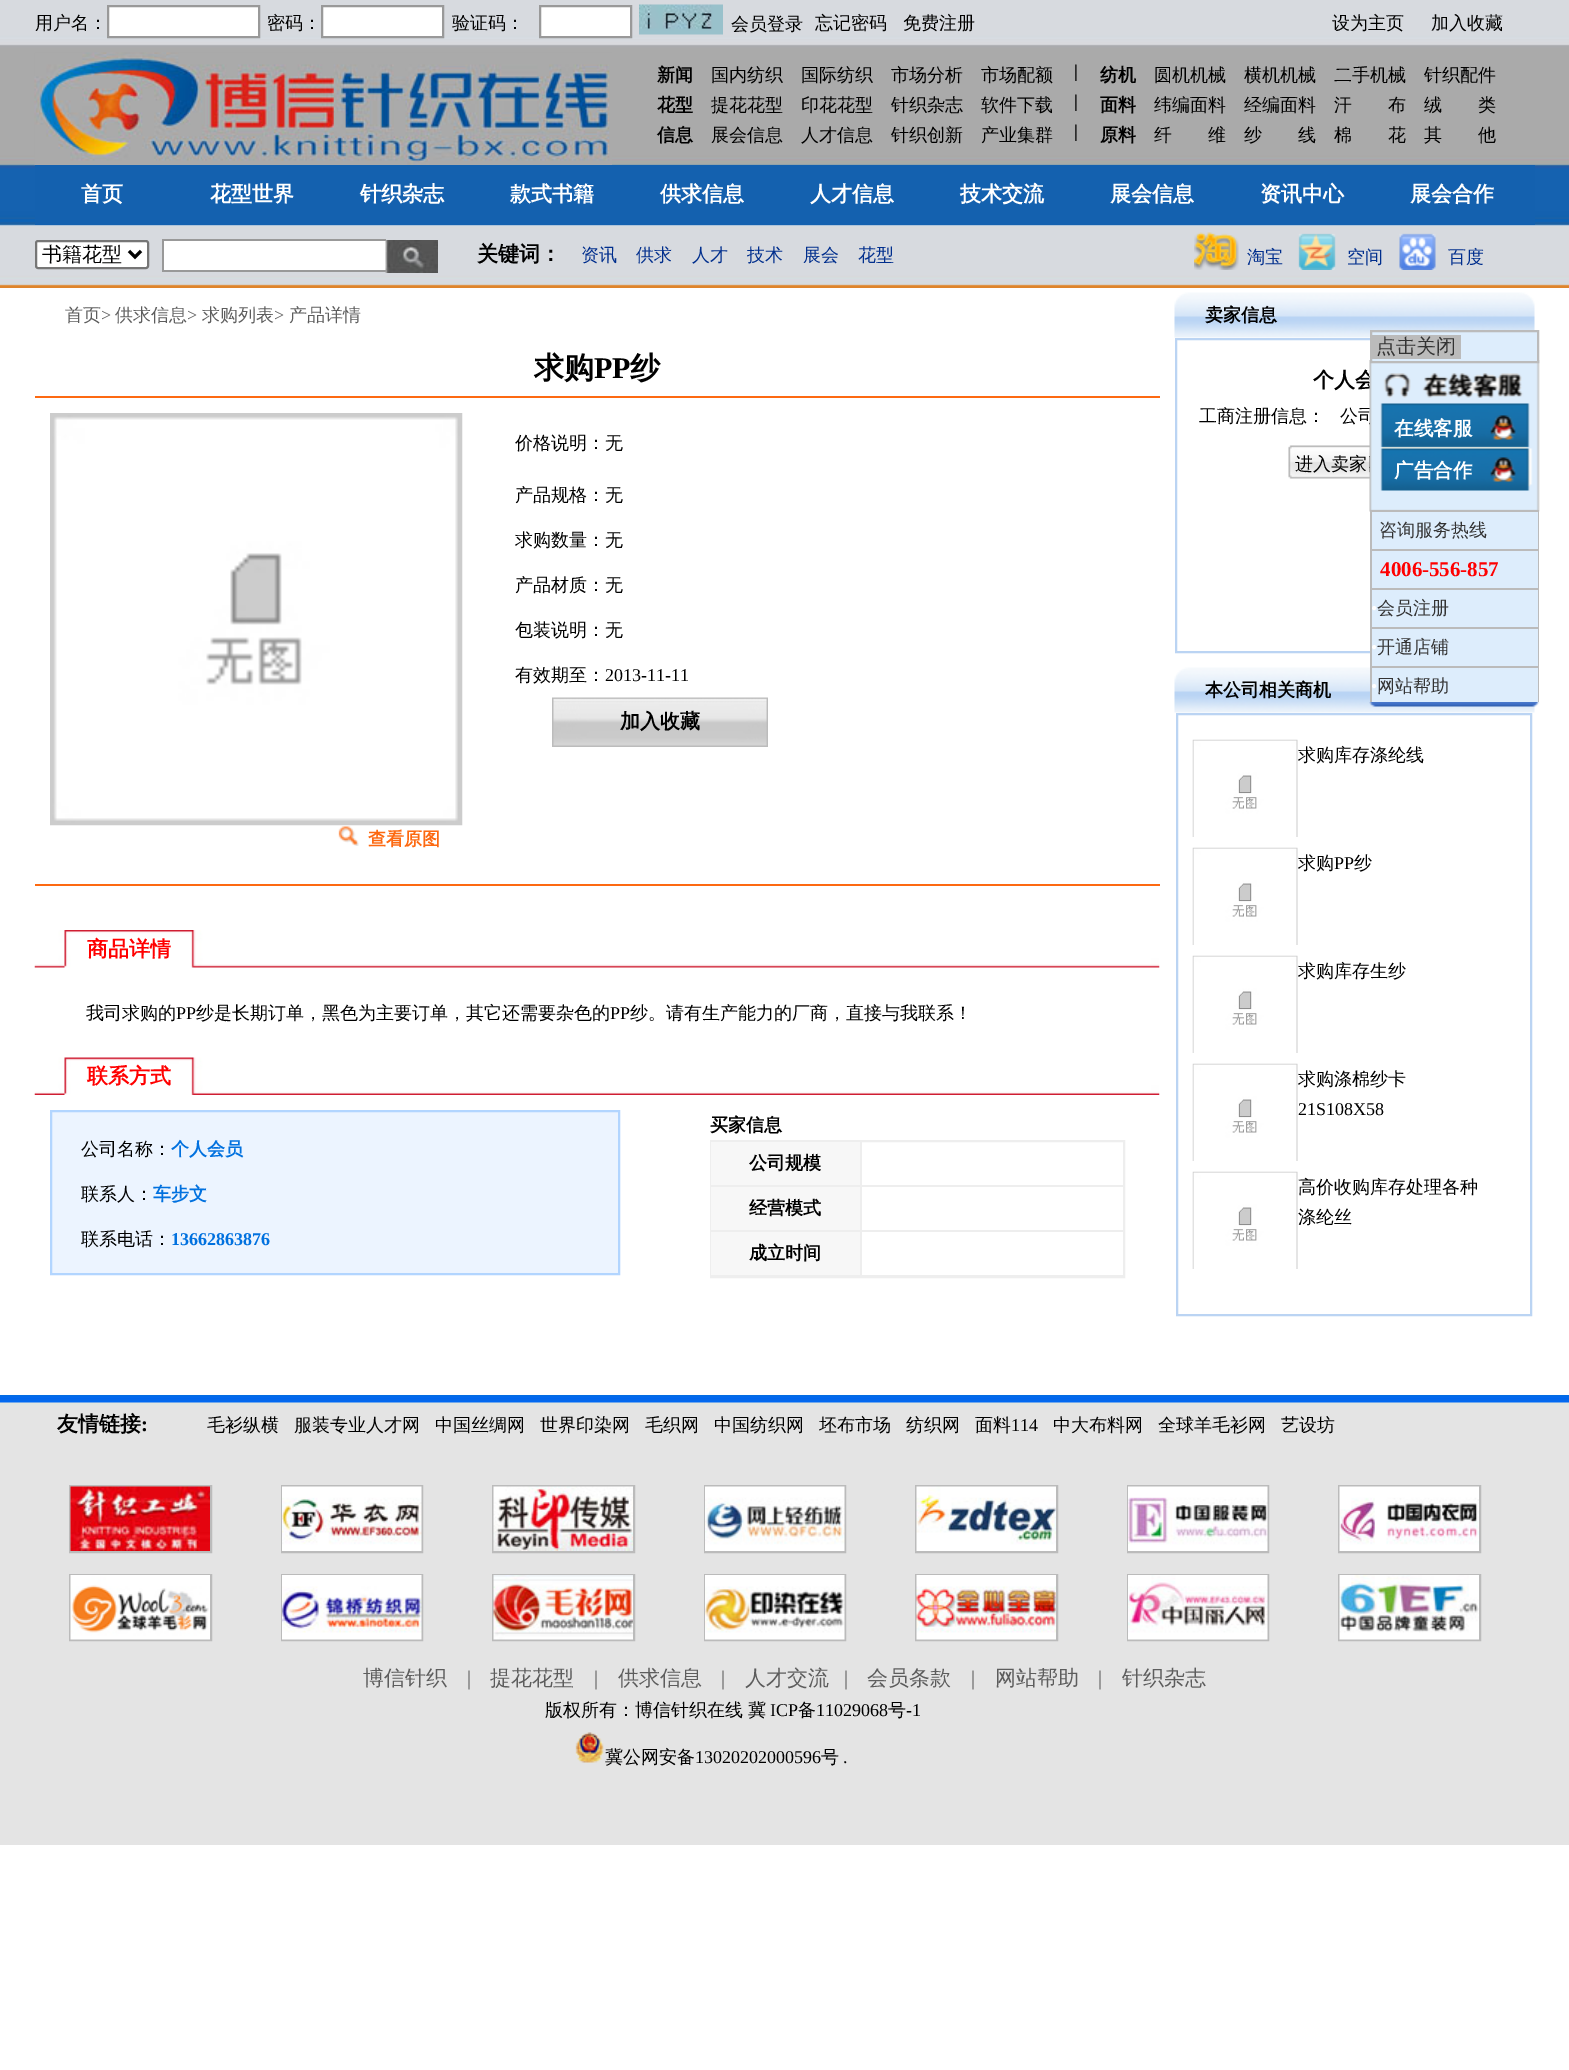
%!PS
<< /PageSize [1569 2070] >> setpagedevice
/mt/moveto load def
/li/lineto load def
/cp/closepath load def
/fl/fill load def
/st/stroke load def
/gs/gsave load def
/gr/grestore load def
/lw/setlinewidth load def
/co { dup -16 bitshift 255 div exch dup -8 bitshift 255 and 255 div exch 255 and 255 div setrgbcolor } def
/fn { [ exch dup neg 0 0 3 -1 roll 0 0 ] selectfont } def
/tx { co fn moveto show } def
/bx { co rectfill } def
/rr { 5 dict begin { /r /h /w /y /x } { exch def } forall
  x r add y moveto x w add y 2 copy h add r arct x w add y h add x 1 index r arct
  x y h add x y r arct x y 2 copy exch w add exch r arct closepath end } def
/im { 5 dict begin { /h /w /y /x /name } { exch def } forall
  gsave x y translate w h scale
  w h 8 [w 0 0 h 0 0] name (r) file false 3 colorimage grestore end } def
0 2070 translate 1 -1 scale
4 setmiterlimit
0 0 1569 2070 16#FFFFFF bx
(media/1.raw) 0 0 1569 288 im
108 6 mt 259 6 li 259 37 li 108 37 li cp gs fl gr
16#999999 co
2 lw
st
16#FFFFFF co
322 6 mt 443 6 li 443 37 li 322 37 li cp gs fl gr
16#999999 co
st
16#FFFFFF co
540 6 mt 631 6 li 631 37 li 540 37 li cp gs fl gr
16#999999 co
st
(media/2.raw) 639 4 84 31 im
(media/3.raw) 34 52 578 113 im
35 165 1500 60 16#1461AF bx
16#FFFFFF co
36 241 112 27 2 rr gs fl gr
16#767676 co
st
16#000000 co
3 lw
129 251 mt 135 257 li 141 251 li st
164 241 222 29 16#FFFFFF bx
162 239 224 2 16#999999 bx
162 270 224 2 16#999999 bx
162 239 2 33 16#999999 bx
(media/4.raw) 385 240 53 33 im
(media/5.raw) 1194 232 45 38 im
(media/6.raw) 1298 233 38 37 im
(media/7.raw) 1399 233 37 37 im
35 396 1125 2 16#FD6911 bx
35 884 1125 2 16#FD6911 bx
(media/8.raw) 552 697 216 50 im
16#CCCCCC co
2 lw
51 414 410 410 rectstroke
(media/9.raw) 52 415 408 408 im
(media/10.raw) 338 826 21 20 im
(media/11.raw) 34 930 1126 38 im
(media/12.raw) 34 1057 1126 38 im
16#ECF4FF co
51 1111 mt 619 1111 li 619 1274 li 51 1274 li cp gs fl gr
16#B2D5FF co
st
16#EEEEEE co
711 1141 413 136 rectstroke
711 1142 149 43 16#F7F7F7 bx
860 1142 2 135 16#EEEEEE bx
711 1185 413 2 16#EEEEEE bx
711 1187 149 43 16#F7F7F7 bx
711 1230 413 2 16#EEEEEE bx
711 1232 149 43 16#F7F7F7 bx
711 1275 413 1 16#EEEEEE bx
(media/13.raw) 1174 292 361 46 im
16#BBD4F3 co
1176 339 358 313 rectstroke
(media/14.raw) 1288 445 82 34 im
(media/13.raw) 1174 667 361 46 im
1177 714 354 601 rectstroke
(media/15.raw) 1192 739 106 98 im
(media/15.raw) 1192 847 106 98 im
(media/15.raw) 1192 955 106 98 im
(media/15.raw) 1192 1063 106 98 im
(media/15.raw) 1192 1171 106 98 im
(media/16.raw) 0 1395 1569 450 im
16#BBBBBB co
70 1486 141 66 rectstroke
(media/17.raw) 70 1486 140 65 im
70 1575 141 65 rectstroke
(media/18.raw) 70 1575 140 65 im
282 1486 140 66 rectstroke
(media/19.raw) 282 1486 140 65 im
282 1575 140 65 rectstroke
(media/20.raw) 282 1575 140 65 im
493 1486 141 66 rectstroke
(media/21.raw) 493 1486 140 65 im
493 1575 141 65 rectstroke
(media/22.raw) 493 1575 140 65 im
705 1486 140 66 rectstroke
(media/23.raw) 705 1486 140 65 im
705 1575 140 65 rectstroke
(media/24.raw) 705 1575 140 65 im
916 1486 141 66 rectstroke
(media/25.raw) 916 1486 140 65 im
916 1575 141 65 rectstroke
(media/26.raw) 916 1575 140 65 im
1128 1486 140 66 rectstroke
(media/27.raw) 1128 1486 140 65 im
1128 1575 140 65 rectstroke
(media/28.raw) 1128 1575 140 65 im
1339 1486 141 66 rectstroke
(media/29.raw) 1339 1486 140 65 im
1339 1575 141 65 rectstroke
(media/30.raw) 1339 1575 140 65 im
(media/31.raw) 575 1732 29 31 im
1372 512 166 37 16#DDEDFC bx
1372 551 166 37 16#DDEDFC bx
1370 549 169 2 16#BBBBBB bx
1538 549 1 39 16#BBBBBB bx
1370 549 2 39 16#BBBBBB bx
1372 590 166 37 16#DDEDFC bx
1370 588 169 2 16#BBBBBB bx
1538 588 1 39 16#BBBBBB bx
1370 588 2 39 16#BBBBBB bx
1372 629 166 37 16#DDEDFC bx
1370 627 169 2 16#BBBBBB bx
1538 627 1 39 16#BBBBBB bx
1370 627 2 39 16#BBBBBB bx
1372 668 166 34 16#DDEDFC bx
1370 666 169 2 16#BBBBBB bx
1538 666 1 36 16#BBBBBB bx
1370 666 2 36 16#BBBBBB bx
(media/35.raw) 1369 702 171 5 im
(用户名：) 35 29 /WenQuanYiZenHei-Medium 18 16#000000 tx
(密码：) 267 29 /WenQuanYiZenHei-Medium 18 16#000000 tx
(验证码：) 452 29 /WenQuanYiZenHei-Medium 18 16#000000 tx
(会员登录) 731 30 /WenQuanYiZenHei-Medium 18 16#000000 tx
(忘记密码) 815 29 /WenQuanYiZenHei-Medium 18 16#000000 tx
(免费注册) 903 29 /WenQuanYiZenHei-Medium 18 16#000000 tx
(设为主页) 1332 29 /WenQuanYiZenHei-Medium 18 16#000000 tx
(加入收藏) 1431 29 /WenQuanYiZenHei-Medium 18 16#000000 tx
(新闻) 657 81 /WenQuanYiZenHei-Bold 18 16#000000 tx
(国内纺织) 711 81 /WenQuanYiZenHei-Medium 18 16#000000 tx
(国际纺织) 801 81 /WenQuanYiZenHei-Medium 18 16#000000 tx
(市场分析) 891 81 /WenQuanYiZenHei-Medium 18 16#000000 tx
(市场配额) 981 81 /WenQuanYiZenHei-Medium 18 16#000000 tx
(|) 1074 77 /LiberationSerif-Bold 18 16#000000 tx
(纺机) 1100 81 /WenQuanYiZenHei-Bold 18 16#000000 tx
(圆机机械) 1154 81 /WenQuanYiZenHei-Medium 18 16#000000 tx
(横机机械) 1244 81 /WenQuanYiZenHei-Medium 18 16#000000 tx
(二手机械) 1334 81 /WenQuanYiZenHei-Medium 18 16#000000 tx
(针织配件) 1424 81 /WenQuanYiZenHei-Medium 18 16#000000 tx
(花型) 657 111 /WenQuanYiZenHei-Bold 18 16#000000 tx
(提花花型) 711 111 /WenQuanYiZenHei-Medium 18 16#000000 tx
(印花花型) 801 111 /WenQuanYiZenHei-Medium 18 16#000000 tx
(针织杂志) 891 111 /WenQuanYiZenHei-Medium 18 16#000000 tx
(软件下载) 981 111 /WenQuanYiZenHei-Medium 18 16#000000 tx
(|) 1074 107 /LiberationSerif-Bold 18 16#000000 tx
(面料) 1100 111 /WenQuanYiZenHei-Bold 18 16#000000 tx
(纬编面料) 1154 111 /WenQuanYiZenHei-Medium 18 16#000000 tx
(经编面料) 1244 111 /WenQuanYiZenHei-Medium 18 16#000000 tx
(汗) 1334 111 /WenQuanYiZenHei-Medium 18 16#000000 tx
(布) 1388 111 /WenQuanYiZenHei-Medium 18 16#000000 tx
(绒) 1424 111 /WenQuanYiZenHei-Medium 18 16#000000 tx
(类) 1478 111 /WenQuanYiZenHei-Medium 18 16#000000 tx
(信息) 657 141 /WenQuanYiZenHei-Bold 18 16#000000 tx
(展会信息) 711 141 /WenQuanYiZenHei-Medium 18 16#000000 tx
(人才信息) 801 141 /WenQuanYiZenHei-Medium 18 16#000000 tx
(针织创新) 891 141 /WenQuanYiZenHei-Medium 18 16#000000 tx
(产业集群) 981 141 /WenQuanYiZenHei-Medium 18 16#000000 tx
(|) 1074 137 /LiberationSerif-Bold 18 16#000000 tx
(原料) 1100 141 /WenQuanYiZenHei-Bold 18 16#000000 tx
(纤) 1154 141 /WenQuanYiZenHei-Medium 18 16#000000 tx
(维) 1208 141 /WenQuanYiZenHei-Medium 18 16#000000 tx
(纱) 1244 141 /WenQuanYiZenHei-Medium 18 16#000000 tx
(线) 1298 141 /WenQuanYiZenHei-Medium 18 16#000000 tx
(棉) 1334 141 /WenQuanYiZenHei-Medium 18 16#000000 tx
(花) 1388 141 /WenQuanYiZenHei-Medium 18 16#000000 tx
(其) 1424 141 /WenQuanYiZenHei-Medium 18 16#000000 tx
(他) 1478 141 /WenQuanYiZenHei-Medium 18 16#000000 tx
(首页) 81 201 /WenQuanYiZenHei-Bold 21 16#FFFFFF tx
(花型世界) 210 201 /WenQuanYiZenHei-Bold 21 16#FFFFFF tx
(针织杂志) 360 201 /WenQuanYiZenHei-Bold 21 16#FFFFFF tx
(款式书籍) 510 201 /WenQuanYiZenHei-Bold 21 16#FFFFFF tx
(供求信息) 660 201 /WenQuanYiZenHei-Bold 21 16#FFFFFF tx
(人才信息) 810 201 /WenQuanYiZenHei-Bold 21 16#FFFFFF tx
(技术交流) 960 201 /WenQuanYiZenHei-Bold 21 16#FFFFFF tx
(展会信息) 1110 201 /WenQuanYiZenHei-Bold 21 16#FFFFFF tx
(资讯中心) 1260 201 /WenQuanYiZenHei-Bold 21 16#FFFFFF tx
(展会合作) 1410 201 /WenQuanYiZenHei-Bold 21 16#FFFFFF tx
(书籍花型) 42 261 /WenQuanYiZenHei-Medium 20 16#000000 tx
(关键词：) 477 261 /WenQuanYiZenHei-Bold 21 16#000000 tx
(资讯) 581 261 /WenQuanYiZenHei-Medium 18 16#002E8D tx
(供求) 636 261 /WenQuanYiZenHei-Medium 18 16#002E8D tx
(人才) 692 261 /WenQuanYiZenHei-Medium 18 16#002E8D tx
(技术) 747 261 /WenQuanYiZenHei-Medium 18 16#002E8D tx
(展会) 803 261 /WenQuanYiZenHei-Medium 18 16#002E8D tx
(花型) 858 261 /WenQuanYiZenHei-Medium 18 16#002E8D tx
(淘宝) 1247 263 /WenQuanYiZenHei-Medium 18 16#002E8D tx
(空间) 1347 263 /WenQuanYiZenHei-Medium 18 16#002E8D tx
(百度) 1448 263 /WenQuanYiZenHei-Medium 18 16#002E8D tx
(首页) 65 321 /WenQuanYiZenHei-Medium 18 16#5D5D5D tx
(>) 101 321 /LiberationSerif-Regular 18 16#5D5D5D tx
(供求信息) 115 321 /WenQuanYiZenHei-Medium 18 16#5D5D5D tx
(>) 187 321 /LiberationSerif-Regular 18 16#5D5D5D tx
(求购列表) 202 321 /WenQuanYiZenHei-Medium 18 16#5D5D5D tx
(>) 274 321 /LiberationSerif-Regular 18 16#5D5D5D tx
(产品详情) 289 321 /WenQuanYiZenHei-Medium 18 16#5D5D5D tx
(求购) 534 378 /WenQuanYiZenHei-Bold 30 16#000000 tx
(PP) 594 378 /LiberationSerif-Bold 30 16#000000 tx
(纱) 630 378 /WenQuanYiZenHei-Bold 30 16#000000 tx
(价格说明：无) 515 449 /WenQuanYiZenHei-Medium 18 16#000000 tx
(产品规格：无) 515 501 /WenQuanYiZenHei-Medium 18 16#000000 tx
(求购数量：无) 515 546 /WenQuanYiZenHei-Medium 18 16#000000 tx
(产品材质：无) 515 591 /WenQuanYiZenHei-Medium 18 16#000000 tx
(包装说明：无) 515 636 /WenQuanYiZenHei-Medium 18 16#000000 tx
(有效期至：) 515 681 /WenQuanYiZenHei-Medium 18 16#000000 tx
(2013-11-11) 605 681 /LiberationSerif-Regular 18 16#000000 tx
(加入收藏) 620 728 /WenQuanYiZenHei-Bold 20 16#000000 tx
(查看原图) 368 845 /WenQuanYiZenHei-Bold 18 16#FD6911 tx
(商品详情) 87 956 /WenQuanYiZenHei-Bold 21 16#FF0000 tx
(我司求购的) 86 1019 /WenQuanYiZenHei-Medium 18 16#000000 tx
(PP) 176 1019 /LiberationSerif-Regular 18 16#000000 tx
(纱是长期订单，黑色为主要订单，其它还需要杂色的) 196 1019 /WenQuanYiZenHei-Medium 18 16#000000 tx
(PP) 610 1019 /LiberationSerif-Regular 18 16#000000 tx
(纱。请有生产能力的厂商，直接与我联系！) 630 1019 /WenQuanYiZenHei-Medium 18 16#000000 tx
(联系方式) 87 1083 /WenQuanYiZenHei-Bold 21 16#FF0000 tx
(公司名称：) 81 1155 /WenQuanYiZenHei-Medium 18 16#000000 tx
(个人会员) 171 1155 /WenQuanYiZenHei-Bold 18 16#0171DF tx
(联系人：) 81 1200 /WenQuanYiZenHei-Medium 18 16#000000 tx
(车步文) 153 1200 /WenQuanYiZenHei-Bold 18 16#0171DF tx
(联系电话：) 81 1245 /WenQuanYiZenHei-Medium 18 16#000000 tx
(13662863876) 171 1245 /LiberationSerif-Bold 18 16#0171DF tx
(买家信息) 710 1131 /WenQuanYiZenHei-Bold 18 16#000000 tx
(公司规模) 749 1169 /WenQuanYiZenHei-Bold 18 16#000000 tx
(经营模式) 749 1214 /WenQuanYiZenHei-Bold 18 16#000000 tx
(成立时间) 749 1259 /WenQuanYiZenHei-Bold 18 16#000000 tx
(卖家信息) 1205 321 /WenQuanYiZenHei-Bold 18 16#000000 tx
(个人会) 1313 387 /WenQuanYiZenHei-Bold 21 16#000000 tx
(工商注册信息：) 1199 422 /WenQuanYiZenHei-Medium 18 16#000000 tx
(公司) 1340 422 /WenQuanYiZenHei-Medium 18 16#000000 tx
(进入卖家) 1295 470 /WenQuanYiZenHei-Medium 18 16#000000 tx
(本公司相关商机) 1205 696 /WenQuanYiZenHei-Bold 18 16#000000 tx
(求购库存涤纶线) 1298 761 /WenQuanYiZenHei-Medium 18 16#000000 tx
(求购) 1298 869 /WenQuanYiZenHei-Medium 18 16#000000 tx
(PP) 1334 869 /LiberationSerif-Regular 18 16#000000 tx
(纱) 1354 869 /WenQuanYiZenHei-Medium 18 16#000000 tx
(求购库存生纱) 1298 977 /WenQuanYiZenHei-Medium 18 16#000000 tx
(求购涤棉纱卡) 1298 1085 /WenQuanYiZenHei-Medium 18 16#000000 tx
(21S108X58) 1298 1115 /LiberationSerif-Regular 18 16#000000 tx
(高价收购库存处理各种) 1298 1193 /WenQuanYiZenHei-Medium 18 16#000000 tx
(涤纶丝) 1298 1223 /WenQuanYiZenHei-Medium 18 16#000000 tx
(友情链接) 57 1431 /WenQuanYiZenHei-Bold 21 16#000000 tx
(:) 141 1431 /LiberationSerif-Bold 21 16#000000 tx
(毛衫纵横) 207 1431 /WenQuanYiZenHei-Medium 18 16#000000 tx
(服装专业人才网) 294 1431 /WenQuanYiZenHei-Medium 18 16#000000 tx
(中国丝绸网) 435 1431 /WenQuanYiZenHei-Medium 18 16#000000 tx
(世界印染网) 540 1431 /WenQuanYiZenHei-Medium 18 16#000000 tx
(毛织网) 645 1431 /WenQuanYiZenHei-Medium 18 16#000000 tx
(中国纺织网) 714 1431 /WenQuanYiZenHei-Medium 18 16#000000 tx
(坯布市场) 819 1431 /WenQuanYiZenHei-Medium 18 16#000000 tx
(纺织网) 906 1431 /WenQuanYiZenHei-Medium 18 16#000000 tx
(面料) 975 1431 /WenQuanYiZenHei-Medium 18 16#000000 tx
(114) 1011 1431 /LiberationSerif-Regular 18 16#000000 tx
(中大布料网) 1053 1431 /WenQuanYiZenHei-Medium 18 16#000000 tx
(全球羊毛衫网) 1158 1431 /WenQuanYiZenHei-Medium 18 16#000000 tx
(艺设坊) 1281 1431 /WenQuanYiZenHei-Medium 18 16#000000 tx
(博信针织) 363 1685 /WenQuanYiZenHei-Medium 21 16#5D5D5D tx
(|) 467 1685 /LiberationSerif-Regular 21 16#5D5D5D tx
(提花花型) 490 1685 /WenQuanYiZenHei-Medium 21 16#5D5D5D tx
(|) 594 1685 /LiberationSerif-Regular 21 16#5D5D5D tx
(供求信息) 618 1685 /WenQuanYiZenHei-Medium 21 16#5D5D5D tx
(|) 721 1685 /LiberationSerif-Regular 21 16#5D5D5D tx
(人才交流) 745 1685 /WenQuanYiZenHei-Medium 21 16#5D5D5D tx
(|) 844 1685 /LiberationSerif-Regular 21 16#5D5D5D tx
(会员条款) 867 1685 /WenQuanYiZenHei-Medium 21 16#5D5D5D tx
(|) 971 1685 /LiberationSerif-Regular 21 16#5D5D5D tx
(网站帮助) 995 1685 /WenQuanYiZenHei-Medium 21 16#5D5D5D tx
(|) 1098 1685 /LiberationSerif-Regular 21 16#5D5D5D tx
(针织杂志) 1122 1685 /WenQuanYiZenHei-Medium 21 16#5D5D5D tx
(版权所有：博信针织在线 冀) 545 1716 /WenQuanYiZenHei-Medium 18 16#000000 tx
(ICP) 770 1716 /LiberationSerif-Regular 18 16#000000 tx
(备) 798 1716 /WenQuanYiZenHei-Medium 18 16#000000 tx
(11029068) 816 1716 /LiberationSerif-Regular 18 16#000000 tx
(号) 888 1716 /WenQuanYiZenHei-Medium 18 16#000000 tx
(-1) 906 1716 /LiberationSerif-Regular 18 16#000000 tx
(冀公网安备) 605 1763 /WenQuanYiZenHei-Medium 18 16#000000 tx
(13020202000596) 695 1763 /LiberationSerif-Regular 18 16#000000 tx
(号) 821 1763 /WenQuanYiZenHei-Medium 18 16#000000 tx
(.) 843 1763 /LiberationSerif-Regular 18 16#000000 tx
(media/32.raw) 1369 360 171 152 im
16#DDEDFC co
1371 331 mt 1538 331 li 1538 362 li 1371 362 li cp gs fl gr
16#BBBBBB co
st
1372 335 89 24 16#BBBBBB bx
(点击关闭) 1376 353 /WenQuanYiZenHei-Medium 20 16#333333 tx
(media/33.raw) 1490 415 26 25 im
(在线客服) 1394 435 /WenQuanYiZenHei-Bold 19.5 16#FFFFFF tx
(media/34.raw) 1490 457 26 25 im
(广告合作) 1394 477 /WenQuanYiZenHei-Bold 19.5 16#FFFFFF tx
1370 510 169 2 16#BBBBBB bx
1538 510 1 39 16#BBBBBB bx
1370 510 2 39 16#BBBBBB bx
(咨询服务热线) 1379 536 /WenQuanYiZenHei-Medium 18 16#333333 tx
(4006-556-857) 1380 576 /LiberationSerif-Bold 21 16#FF0000 tx
(•) 1371 614 /LiberationSerif-Regular 18 16#FFFFFF tx
(会员注册) 1377 614 /WenQuanYiZenHei-Medium 18 16#333333 tx
(•) 1371 653 /LiberationSerif-Regular 18 16#FFFFFF tx
(开通店铺) 1377 653 /WenQuanYiZenHei-Medium 18 16#333333 tx
(•) 1371 692 /LiberationSerif-Regular 18 16#FFFFFF tx
(网站帮助) 1377 692 /WenQuanYiZenHei-Medium 18 16#333333 tx
showpage
